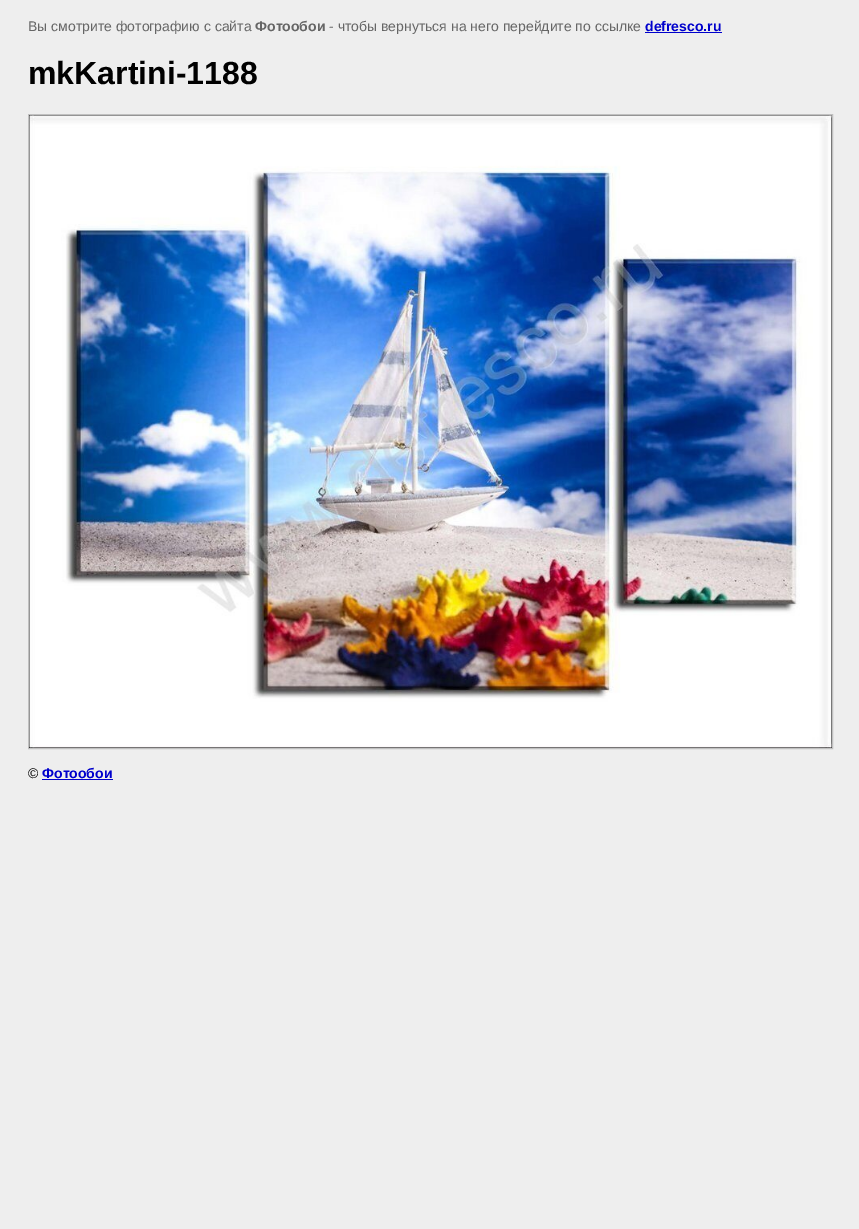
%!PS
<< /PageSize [859 1229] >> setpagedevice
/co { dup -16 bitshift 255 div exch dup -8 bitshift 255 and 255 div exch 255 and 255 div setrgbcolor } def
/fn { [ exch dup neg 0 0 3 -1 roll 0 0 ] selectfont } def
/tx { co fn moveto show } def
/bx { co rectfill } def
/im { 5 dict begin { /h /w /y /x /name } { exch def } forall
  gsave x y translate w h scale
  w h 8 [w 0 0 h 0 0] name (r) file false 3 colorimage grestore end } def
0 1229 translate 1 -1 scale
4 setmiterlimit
0 0 859 1229 16#EEEEEE bx
645 32 77 1 16#0000CC bx
16#C0C0C0 co
28.5 114.5 804 634 rectstroke
(media/1.raw) 29 115 803 633 im
42 779 71 1 16#0000CC bx
(Вы смотрите фотографию с сайта) 28 31 /LiberationSans-Regular 14 16#666666 tx
(Фотообои) 255 31 /LiberationSans-Bold 14 16#666666 tx
(- чтобы вернуться на него перейдите по ссылке) 329 31 /LiberationSans-Regular 14 16#666666 tx
(defresco.ru) 645 31 /LiberationSans-Bold 14 16#0000CC tx
(mkKartini-1188) 28 84 /LiberationSans-Bold 32 16#000000 tx
(©) 28 778 /LiberationSans-Regular 14 16#000000 tx
(Фотообои) 42 778 /LiberationSans-Bold 14 16#0000CC tx
showpage
